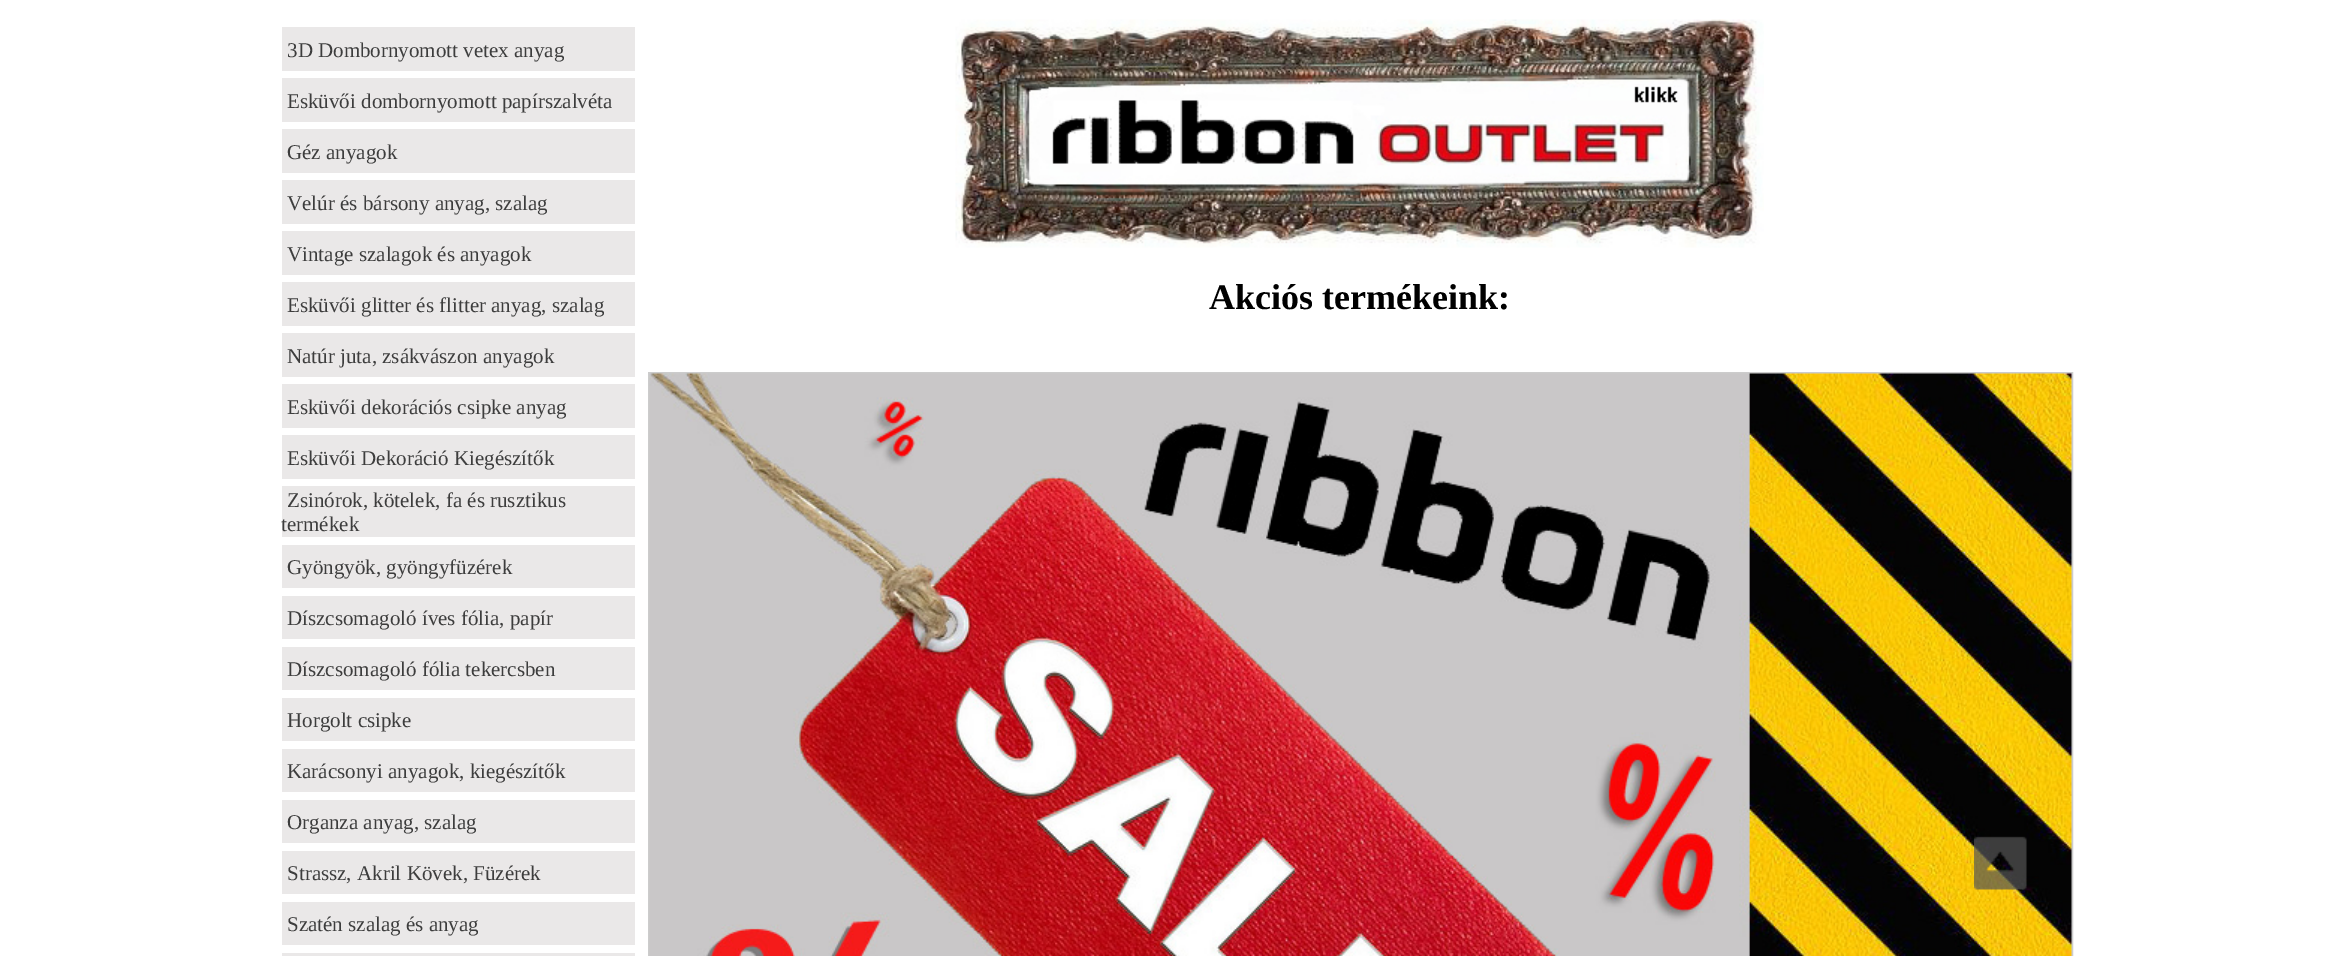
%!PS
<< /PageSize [2349 956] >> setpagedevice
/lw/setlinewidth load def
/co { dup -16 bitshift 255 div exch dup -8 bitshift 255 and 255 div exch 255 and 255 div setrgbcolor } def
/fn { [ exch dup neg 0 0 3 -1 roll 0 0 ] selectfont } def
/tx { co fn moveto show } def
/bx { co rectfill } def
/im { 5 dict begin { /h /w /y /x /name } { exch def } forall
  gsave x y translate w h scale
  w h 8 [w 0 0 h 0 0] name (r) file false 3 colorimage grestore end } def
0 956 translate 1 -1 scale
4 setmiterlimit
0 0 2349 956 16#FFFFFF bx
282 27 353 44 16#EAE8E8 bx
282 78 353 44 16#EAE8E8 bx
282 129 353 44 16#EAE8E8 bx
282 180 353 44 16#EAE8E8 bx
282 231 353 44 16#EAE8E8 bx
282 282 353 44 16#EAE8E8 bx
282 333 353 44 16#EAE8E8 bx
282 384 353 44 16#EAE8E8 bx
282 435 353 44 16#EAE8E8 bx
282 486 353 51 16#EAE8E8 bx
282 545 353 43 16#EAE8E8 bx
282 596 353 43 16#EAE8E8 bx
282 647 353 43 16#EAE8E8 bx
282 698 353 43 16#EAE8E8 bx
282 749 353 43 16#EAE8E8 bx
282 800 353 43 16#EAE8E8 bx
282 851 353 43 16#EAE8E8 bx
282 902 353 43 16#EAE8E8 bx
282 953 353 3 16#EAE8E8 bx
(media/1.raw) 955 19 809 229 im
16#CCCCCC co
2 lw
649 373 1423 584 rectstroke
(media/2.raw) 649 373 1423 583 im
(media/3.raw) 1974 836 53 54 im
(3D Dombornyomott vetex anyag) 287 57 /LiberationSerif-Regular 21 16#3D3D3D tx
(Esküvői dombornyomott papírszalvéta) 287 108 /LiberationSerif-Regular 21 16#3D3D3D tx
(Géz anyagok) 287 159 /LiberationSerif-Regular 21 16#3D3D3D tx
(Velúr és bársony anyag, szalag) 287 210 /LiberationSerif-Regular 21 16#3D3D3D tx
(Vintage szalagok és anyagok) 287 261 /LiberationSerif-Regular 21 16#3D3D3D tx
(Esküvői glitter és flitter anyag, szalag) 287 312 /LiberationSerif-Regular 21 16#3D3D3D tx
(Natúr juta, zsákvászon anyagok) 287 363 /LiberationSerif-Regular 21 16#3D3D3D tx
(Esküvői dekorációs csipke anyag) 287 414 /LiberationSerif-Regular 21 16#3D3D3D tx
(Esküvői Dekoráció Kiegészítők) 287 465 /LiberationSerif-Regular 21 16#3D3D3D tx
(Zsinórok, kötelek, fa és rusztikus) 287 507 /LiberationSerif-Regular 21 16#3D3D3D tx
(termékek) 281 531 /LiberationSerif-Regular 21 16#3D3D3D tx
(Gyöngyök, gyöngyfüzérek) 287 574 /LiberationSerif-Regular 21 16#3D3D3D tx
(Díszcsomagoló íves fólia, papír) 287 625 /LiberationSerif-Regular 21 16#3D3D3D tx
(Díszcsomagoló fólia tekercsben) 287 676 /LiberationSerif-Regular 21 16#3D3D3D tx
(Horgolt csipke) 287 727 /LiberationSerif-Regular 21 16#3D3D3D tx
(Karácsonyi anyagok, kiegészítők) 287 778 /LiberationSerif-Regular 21 16#3D3D3D tx
(Organza anyag, szalag) 287 829 /LiberationSerif-Regular 21 16#3D3D3D tx
(Strassz, Akril Kövek, Füzérek) 287 880 /LiberationSerif-Regular 21 16#3D3D3D tx
(Szatén szalag és anyag) 287 931 /LiberationSerif-Regular 21 16#3D3D3D tx
(Akciós termékeink:) 1209 309 /LiberationSerif-Bold 36 16#000000 tx
showpage
